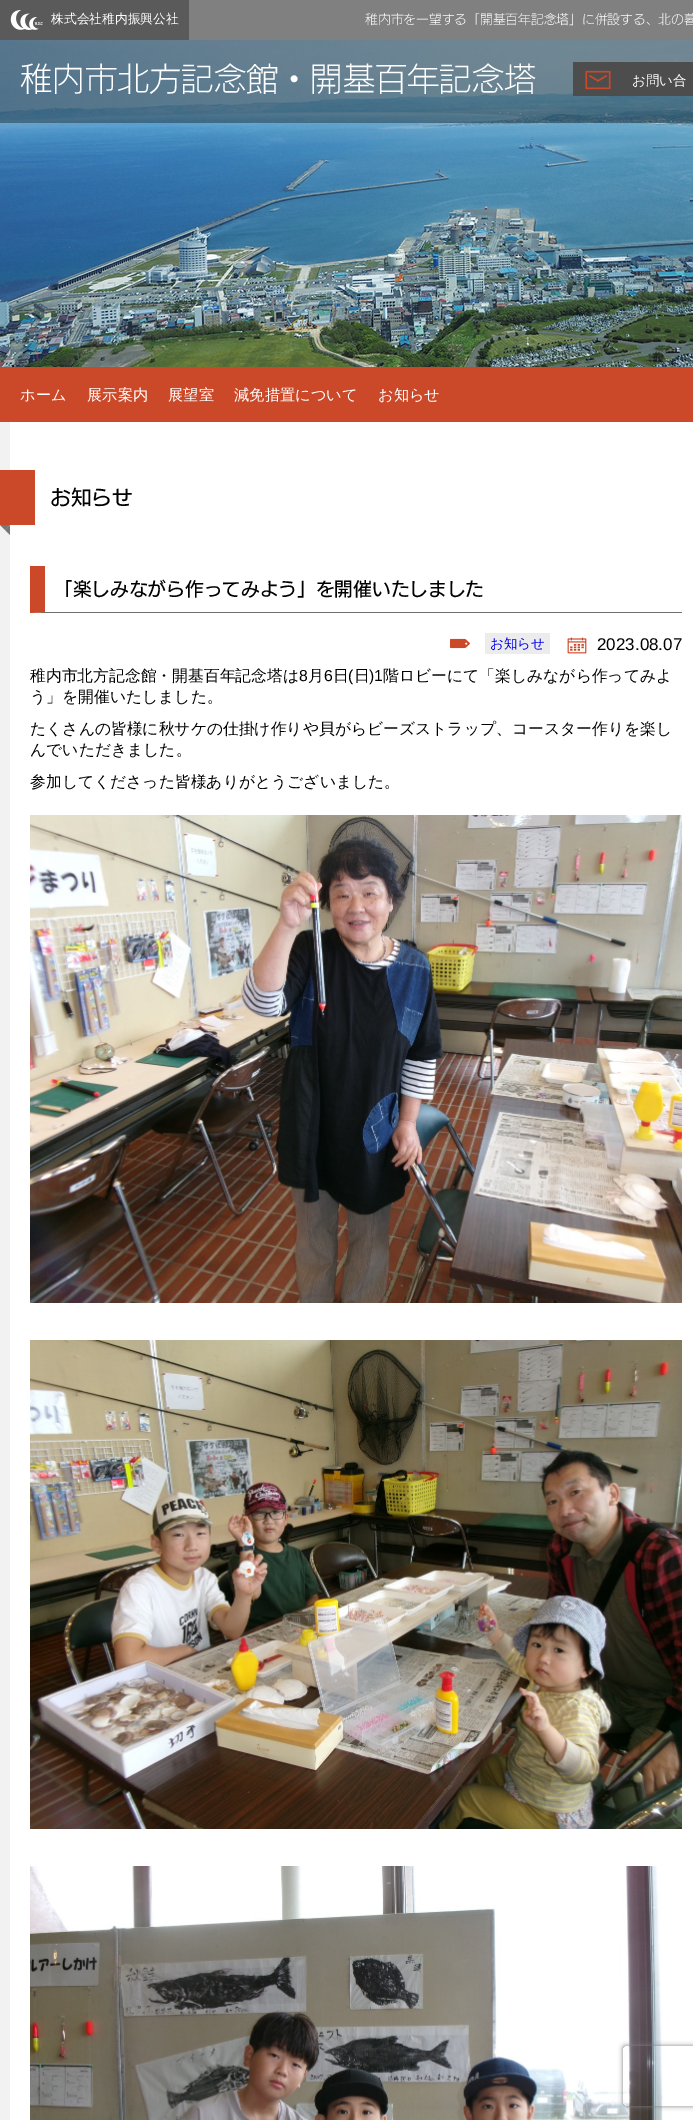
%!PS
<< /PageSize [693 2120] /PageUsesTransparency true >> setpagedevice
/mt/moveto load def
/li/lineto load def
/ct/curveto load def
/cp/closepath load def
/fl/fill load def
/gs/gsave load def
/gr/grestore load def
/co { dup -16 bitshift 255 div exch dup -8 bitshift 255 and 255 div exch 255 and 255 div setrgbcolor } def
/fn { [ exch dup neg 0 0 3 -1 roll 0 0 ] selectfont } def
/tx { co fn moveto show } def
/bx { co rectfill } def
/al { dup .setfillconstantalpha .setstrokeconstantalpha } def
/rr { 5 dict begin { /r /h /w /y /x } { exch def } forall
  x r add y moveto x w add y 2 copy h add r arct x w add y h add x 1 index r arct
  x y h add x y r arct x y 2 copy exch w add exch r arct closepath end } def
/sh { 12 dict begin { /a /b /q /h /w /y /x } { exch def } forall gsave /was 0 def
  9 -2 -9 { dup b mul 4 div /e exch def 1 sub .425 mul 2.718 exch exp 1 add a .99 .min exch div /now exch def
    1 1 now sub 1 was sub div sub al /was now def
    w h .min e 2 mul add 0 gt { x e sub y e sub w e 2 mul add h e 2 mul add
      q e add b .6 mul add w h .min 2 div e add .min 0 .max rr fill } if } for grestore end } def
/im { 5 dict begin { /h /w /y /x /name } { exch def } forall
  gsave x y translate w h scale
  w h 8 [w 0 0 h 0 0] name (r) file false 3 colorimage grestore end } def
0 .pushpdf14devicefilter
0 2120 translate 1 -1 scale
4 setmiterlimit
0 0 693 2120 16#808080 bx
0 0 189 40 16#5A5A5A bx
(media/1.raw) 10 10 33 20 im
(media/2.raw) 0 40 693 327 im
0.35 al
0 40 693 83 16#000000 bx
1 al
573 62 120 34 16#4D4D4D bx
(media/3.raw) 585 70 26 20 im
0 367 693 55 16#CB4829 bx
0 422 10 1698 16#F2F2F2 bx
10 422 683 1698 16#FFFFFF bx
0 470 35 55 16#CB4829 bx
16#777777 co
0 525 mt 10 525 li 5 530 li cp fl
10 525 mt 10 535 li 5 530 li cp fl
16#6E6E6E co
682 613 mt 30 613 li 45 612 li 682 612 li cp fl
16#CB4829 co
30 613 mt 30 566 li 45 566 li 45 612 li cp fl
(media/4.raw) 450 638 20 11 im
485 633 65 21 16#ECECEC bx
(media/5.raw) 567 637 20 17 im
(media/6.raw) 30 815 652 488 im
(media/7.raw) 30 1340 652 489 im
(media/8.raw) 30 1866 633 254 im
gs
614 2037 mt 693 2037 li 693 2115 li 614 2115 li cp 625 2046 mt 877 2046 li 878 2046 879 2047 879 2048 ct 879 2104 li 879 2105 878 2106 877 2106 ct 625 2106 li 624 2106 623 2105 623 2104 ct 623 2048 li 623 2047 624 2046 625 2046 ct cp eoclip newpath
16#808080 co
623 2046 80 60 2 2.5 1 sh
gr
(株式会社稚内振興公社) 51 23 /WenQuanYiZenHei-Medium 12.75 16#FFFFFF tx
(稚内市を一望する「開基百年記念塔」に併設する、北の暮) 365 24 /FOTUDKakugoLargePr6-Light 12.75 16#FFFFFF tx
(稚内市北方記念館・開基百年記念塔) 20 91 /FOTUDKakugoLargePr6-Light 32.25 16#FFFFFF tx
(お問い合) 632 85 /WenQuanYiZenHei-Medium 13.5 16#FFFFFF tx
(ホーム) 20 400 /WenQuanYiZenHei-Medium 15.25 16#FFFFFF tx
(展示案内) 87 400 /WenQuanYiZenHei-Medium 15.25 16#FFFFFF tx
(展望室) 168 400 /WenQuanYiZenHei-Medium 15.25 16#FFFFFF tx
(減免措置について) 234 400 /WenQuanYiZenHei-Medium 15.25 16#FFFFFF tx
(お知らせ) 378 400 /WenQuanYiZenHei-Medium 15.25 16#FFFFFF tx
(お知らせ) 50 505 /FOTUDKakugoLargePr6-Medium 20.5 16#000000 tx
(「楽しみながら作ってみよう」を開催いたしました) 54 596 /FOTUDKakugoLargePr6-Medium 18.7 16#000000 tx
(お知らせ) 490 648 /WenQuanYiZenHei-Medium 13.5 16#0000EE tx
(2023.08.07) 597 650 /LiberationSans-Regular 17 16#000000 tx
(稚内市北方記念館・開基百年記念塔は) 30 681 /WenQuanYiZenHei-Medium 15.8 16#000000 tx
(8) 299 681 /LiberationSans-Regular 15.8 16#000000 tx
(月) 308 681 /WenQuanYiZenHei-Medium 15.8 16#000000 tx
(6) 324 681 /LiberationSans-Regular 15.8 16#000000 tx
(日) 333 681 /WenQuanYiZenHei-Medium 15.8 16#000000 tx
(\() 348 681 /LiberationSans-Regular 15.8 16#000000 tx
(日) 354 681 /WenQuanYiZenHei-Medium 15.8 16#000000 tx
(\)1) 369 681 /LiberationSans-Regular 15.8 16#000000 tx
(階ロビーにて「楽しみながら作ってみよ) 383 681 /WenQuanYiZenHei-Medium 15.8 16#000000 tx
(う」を開催いたしました。) 30 702 /WenQuanYiZenHei-Medium 15.8 16#000000 tx
(たくさんの皆様に秋サケの仕掛け作りや貝がらビーズストラップ、コースター作りを楽し) 30 734 /WenQuanYiZenHei-Medium 15.8 16#000000 tx
(んでいただきました。) 30 755 /WenQuanYiZenHei-Medium 15.8 16#000000 tx
(参加してくださった皆様ありがとうございました。) 30 787 /WenQuanYiZenHei-Medium 15.8 16#000000 tx
.poppdf14devicefilter showpage
